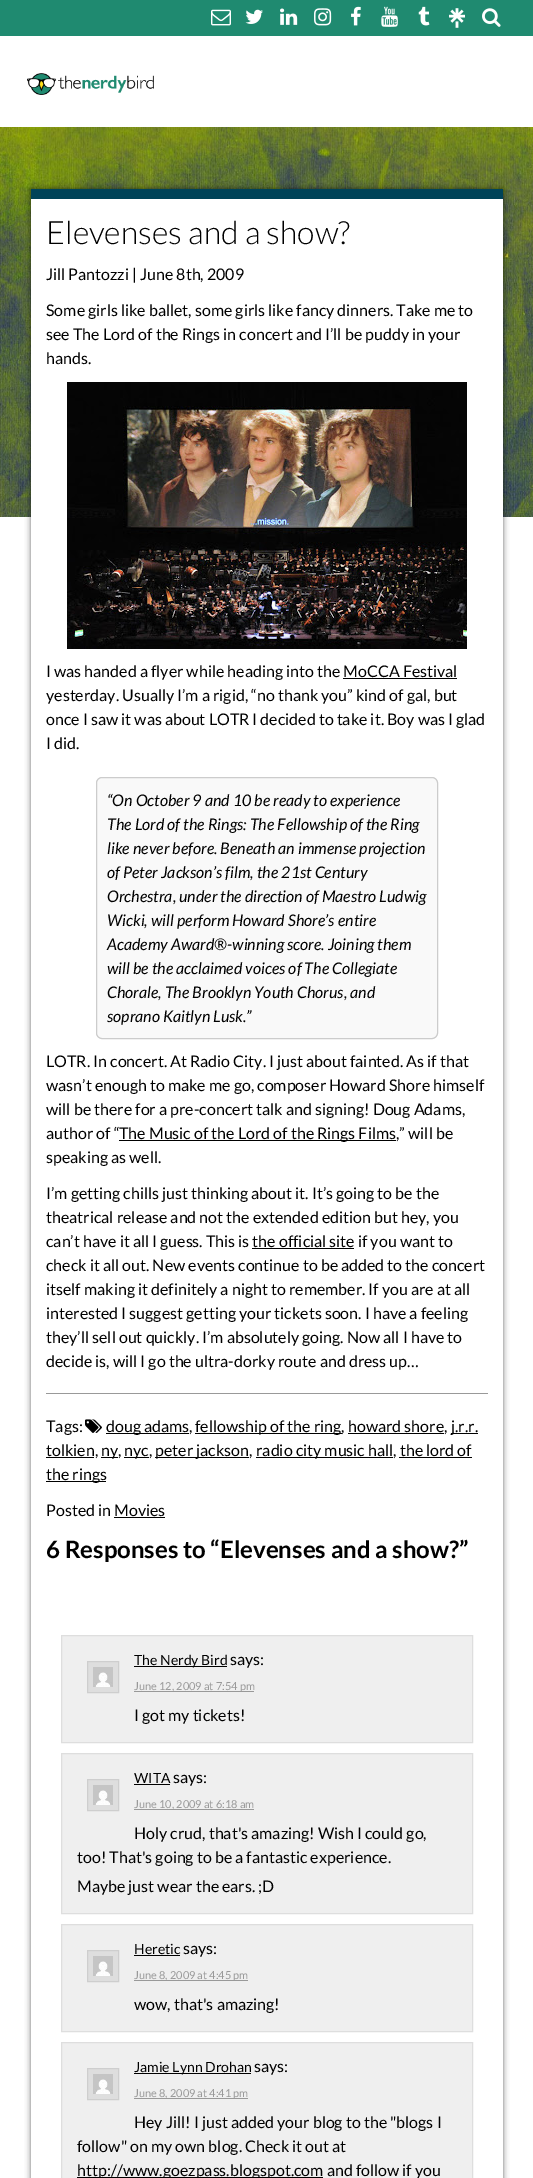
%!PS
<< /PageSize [533 2178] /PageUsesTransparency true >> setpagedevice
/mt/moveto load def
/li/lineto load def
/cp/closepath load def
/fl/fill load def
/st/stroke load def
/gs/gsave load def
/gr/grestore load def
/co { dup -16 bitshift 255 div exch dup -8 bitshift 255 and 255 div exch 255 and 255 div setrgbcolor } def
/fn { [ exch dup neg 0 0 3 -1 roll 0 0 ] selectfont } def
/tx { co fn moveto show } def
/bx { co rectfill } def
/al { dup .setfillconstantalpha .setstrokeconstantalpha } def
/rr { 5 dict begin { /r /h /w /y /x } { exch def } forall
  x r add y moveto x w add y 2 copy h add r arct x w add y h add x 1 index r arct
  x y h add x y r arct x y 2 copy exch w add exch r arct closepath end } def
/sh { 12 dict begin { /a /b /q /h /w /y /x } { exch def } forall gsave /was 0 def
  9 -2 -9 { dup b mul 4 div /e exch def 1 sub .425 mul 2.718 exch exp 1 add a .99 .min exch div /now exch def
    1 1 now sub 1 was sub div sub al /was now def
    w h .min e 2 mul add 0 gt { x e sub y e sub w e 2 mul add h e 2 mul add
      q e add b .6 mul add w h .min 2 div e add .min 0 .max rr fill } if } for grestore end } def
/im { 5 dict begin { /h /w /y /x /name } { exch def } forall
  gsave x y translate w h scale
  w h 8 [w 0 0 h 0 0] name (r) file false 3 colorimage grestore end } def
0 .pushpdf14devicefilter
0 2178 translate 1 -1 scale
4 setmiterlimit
0 0 533 2178 16#1F8A70 bx
(media/1.raw) 211 9 20 17 im
(media/2.raw) 245 9 18 15 im
(media/3.raw) 280 8 18 17 im
(media/4.raw) 314 8 18 18 im
(media/5.raw) 351 6 10 20 im
(media/6.raw) 381 6 17 21 im
(media/7.raw) 418 6 12 20 im
(media/8.raw) 449 8 16 20 im
(media/9.raw) 482 8 19 19 im
0 36 533 91 16#FFFFFF bx
(media/10.raw) 27 73 127 22 im
(media/11.raw) 0 127 533 390 im
0 517 533 1661 16#FFFFFF bx
16#000000 co
31 189 472 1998 0 3 .6 sh
31 199 472 1979 16#FFFFFF bx
31 189 472 10 16#004358 bx
46 1393 442 1 16#999999 bx
(media/12.raw) 67 382 400 267 im
343 678 114 1 16#000000 bx
16#F9F9F9 co
96.5 777.5 341 261 5.5 rr gs fl gr
16#CCCCCC co
st
119 1140 277 1 16#000000 bx
252 1248 102 1 16#000000 bx
(media/13.raw) 85 1419 17 14 im
106 1433 83 1 16#000000 bx
195 1433 147 1 16#000000 bx
451 1433 27 1 16#000000 bx
348 1433 96 1 16#000000 bx
46 1457 48 1 16#000000 bx
101 1457 17 1 16#000000 bx
124 1457 25 1 16#000000 bx
155 1457 94 1 16#000000 bx
256 1457 137 1 16#000000 bx
399 1457 73 1 16#000000 bx
46 1481 60 1 16#000000 bx
114 1517 51 1 16#000000 bx
16#EFEFEF co
61.5 1635.5 mt 472.5 1635.5 li 472.5 1742.5 li 61.5 1742.5 li cp gs fl gr
16#DEDEDE co
st
87.5 1661.5 mt 118.5 1661.5 li 118.5 1692.5 li 87.5 1692.5 li cp gs fl gr
16#CECECE co
st
(media/14.raw) 93 1667 20 20 im
134 1666 93 1 16#000000 bx
134 1691 120 1 16#999999 bx
16#EFEFEF co
61.5 1753.5 mt 472.5 1753.5 li 472.5 1913.5 li 61.5 1913.5 li cp gs fl gr
16#DEDEDE co
st
87.5 1779.5 mt 118.5 1779.5 li 118.5 1810.5 li 87.5 1810.5 li cp gs fl gr
16#CECECE co
st
(media/14.raw) 93 1785 20 20 im
134 1784 36 1 16#000000 bx
134 1809 120 1 16#999999 bx
16#EFEFEF co
61.5 1924.5 mt 472.5 1924.5 li 472.5 2031.5 li 61.5 2031.5 li cp gs fl gr
16#DEDEDE co
st
87.5 1950.5 mt 118.5 1950.5 li 118.5 1981.5 li 87.5 1981.5 li cp gs fl gr
16#CECECE co
st
(media/14.raw) 93 1956 20 20 im
134 1955 46 1 16#000000 bx
134 1980 114 1 16#999999 bx
16#EFEFEF co
61.5 2042.5 mt 472.5 2042.5 li 472.5 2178.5 li 61.5 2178.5 li cp gs fl gr
16#DEDEDE co
st
87.5 2068.5 mt 118.5 2068.5 li 118.5 2099.5 li 87.5 2099.5 li cp gs fl gr
16#CECECE co
st
(media/14.raw) 93 2074 20 20 im
134 2073 117 1 16#000000 bx
134 2098 114 1 16#999999 bx
77 2177 246 1 16#000000 bx
(Elevenses and a show?) 46 244 /Lato-Light 32 16#000000 tx
(Jill Pantozzi | June 8th, 2009) 46 280 /Lato-Regular 16 16#000000 tx
(Some girls like ballet, some girls like fancy dinners. Take me to) 46 316 /Lato-Regular 16 16#000000 tx
(see The Lord of the Rings in concert and I’ll be puddy in your) 46 340 /Lato-Regular 16 16#000000 tx
(hands.) 46 364 /Lato-Regular 16 16#000000 tx
(I was handed a flyer while heading into the MoCCA Festival) 46 677 /Lato-Regular 16 16#000000 tx
(yesterday. Usually I’m a rigid, “no thank you” kind of gal, but) 46 701 /Lato-Regular 16 16#000000 tx
(once I saw it was about LOTR I decided to take it. Boy was I glad) 46 725 /Lato-Regular 16 16#000000 tx
(I did.) 46 749 /Lato-Regular 16 16#000000 tx
(“On October 9 and 10 be ready to experience) 107 806 /Lato-Italic 16 16#000000 tx
(The Lord of the Rings: The Fellowship of the Ring) 107 830 /Lato-Italic 16 16#000000 tx
(like never before. Beneath an immense projection) 107 854 /Lato-Italic 16 16#000000 tx
(of Peter Jackson’s film, the 21st Century) 107 878 /Lato-Italic 16 16#000000 tx
(Orchestra, under the direction of Maestro Ludwig) 107 902 /Lato-Italic 16 16#000000 tx
(Wicki, will perform Howard Shore’s entire) 107 926 /Lato-Italic 16 16#000000 tx
(Academy Award®-winning score. Joining them) 107 950 /Lato-Italic 16 16#000000 tx
(will be the acclaimed voices of The Collegiate) 107 974 /Lato-Italic 16 16#000000 tx
(Chorale, The Brooklyn Youth Chorus, and) 107 998 /Lato-Italic 16 16#000000 tx
(soprano Kaitlyn Lusk.”) 107 1022 /Lato-Italic 16 16#000000 tx
(LOTR. In concert. At Radio City. I just about fainted. As if that) 46 1067 /Lato-Regular 16 16#000000 tx
(wasn’t enough to make me go, composer Howard Shore himself) 46 1091 /Lato-Regular 16 16#000000 tx
(will be there for a pre-concert talk and signing! Doug Adams,) 46 1115 /Lato-Regular 16 16#000000 tx
(author of “) 46 1139 /Lato-Regular 16 16#000000 tx
(The Music of the Lord of the Rings Films,” will be) 119 1139 /Lato-Regular 16 16#000000 tx
(speaking as well.) 46 1163 /Lato-Regular 16 16#000000 tx
(I’m getting chills just thinking about it. It’s going to be the) 46 1199 /Lato-Regular 16 16#000000 tx
(theatrical release and not the extended edition but hey, you) 46 1223 /Lato-Regular 16 16#000000 tx
(can’t have it all I guess. This is the official site if you want to) 46 1247 /Lato-Regular 16 16#000000 tx
(check it all out. New events continue to be added to the concert) 46 1271 /Lato-Regular 16 16#000000 tx
(itself making it definitely a night to remember. If you are at all) 46 1295 /Lato-Regular 16 16#000000 tx
(interested I suggest getting your tickets soon. I have a feeling) 46 1319 /Lato-Regular 16 16#000000 tx
(they’ll sell out quickly. I’m absolutely going. Now all I have to) 46 1343 /Lato-Regular 16 16#000000 tx
(decide is, will I go the ultra-dorky route and dress up…) 46 1367 /Lato-Regular 16 16#000000 tx
(Tags:) 46 1432 /Lato-Regular 16 16#000000 tx
(doug adams,) 106 1432 /Lato-Regular 16 16#000000 tx
(fellowship of the ring, howard shore,) 195 1432 /Lato-Regular 16 16#000000 tx
(j.r.r.) 451 1432 /Lato-Regular 16 16#000000 tx
(tolkien,) 46 1456 /Lato-Regular 16 16#000000 tx
(ny,) 101 1456 /Lato-Regular 16 16#000000 tx
(nyc,) 124 1456 /Lato-Regular 16 16#000000 tx
(peter jackson,) 155 1456 /Lato-Regular 16 16#000000 tx
(radio city music hall, the lord of) 256 1456 /Lato-Regular 16 16#000000 tx
(the rings) 46 1480 /Lato-Regular 16 16#000000 tx
(Posted in Movies) 46 1516 /Lato-Regular 16 16#000000 tx
(6 Responses to “Elevenses and a show?”) 46 1558 /Lato-Bold 24 16#000000 tx
(The Nerdy Bird) 134 1665 /Lato-Regular 14 16#000000 tx
(says:) 230 1665 /Lato-Regular 16 16#000000 tx
(June 12, 2009 at 7:54 pm) 134 1690 /Lato-Regular 11 16#999999 tx
(I got my tickets!) 134 1721 /Lato-Regular 16 16#000000 tx
(WITA) 134 1783 /Lato-Regular 14 16#000000 tx
(says:) 173 1783 /Lato-Regular 16 16#000000 tx
(June 10, 2009 at 6:18 am) 134 1808 /Lato-Regular 11 16#999999 tx
(Holy crud, that's amazing! Wish I could go,) 134 1839 /Lato-Regular 16 16#000000 tx
(too! That's going to be a fantastic experience.) 77 1863 /Lato-Regular 16 16#000000 tx
(Maybe just wear the ears. ;D) 77 1892 /Lato-Regular 16 16#000000 tx
(Heretic) 134 1954 /Lato-Regular 14 16#000000 tx
(says:) 183 1954 /Lato-Regular 16 16#000000 tx
(June 8, 2009 at 4:45 pm) 134 1979 /Lato-Regular 11 16#999999 tx
(wow, that's amazing!) 134 2010 /Lato-Regular 16 16#000000 tx
(Jamie Lynn Drohan) 134 2072 /Lato-Regular 14 16#000000 tx
(says:) 254 2072 /Lato-Regular 16 16#000000 tx
(June 8, 2009 at 4:41 pm) 134 2097 /Lato-Regular 11 16#999999 tx
(Hey Jill! I just added your blog to the "blogs I) 134 2128 /Lato-Regular 16 16#000000 tx
(follow" on my own blog. Check it out at) 77 2152 /Lato-Regular 16 16#000000 tx
(http://www.goezpass.blogspot.com and follow if you) 77 2176 /Lato-Regular 16 16#000000 tx
.poppdf14devicefilter showpage
